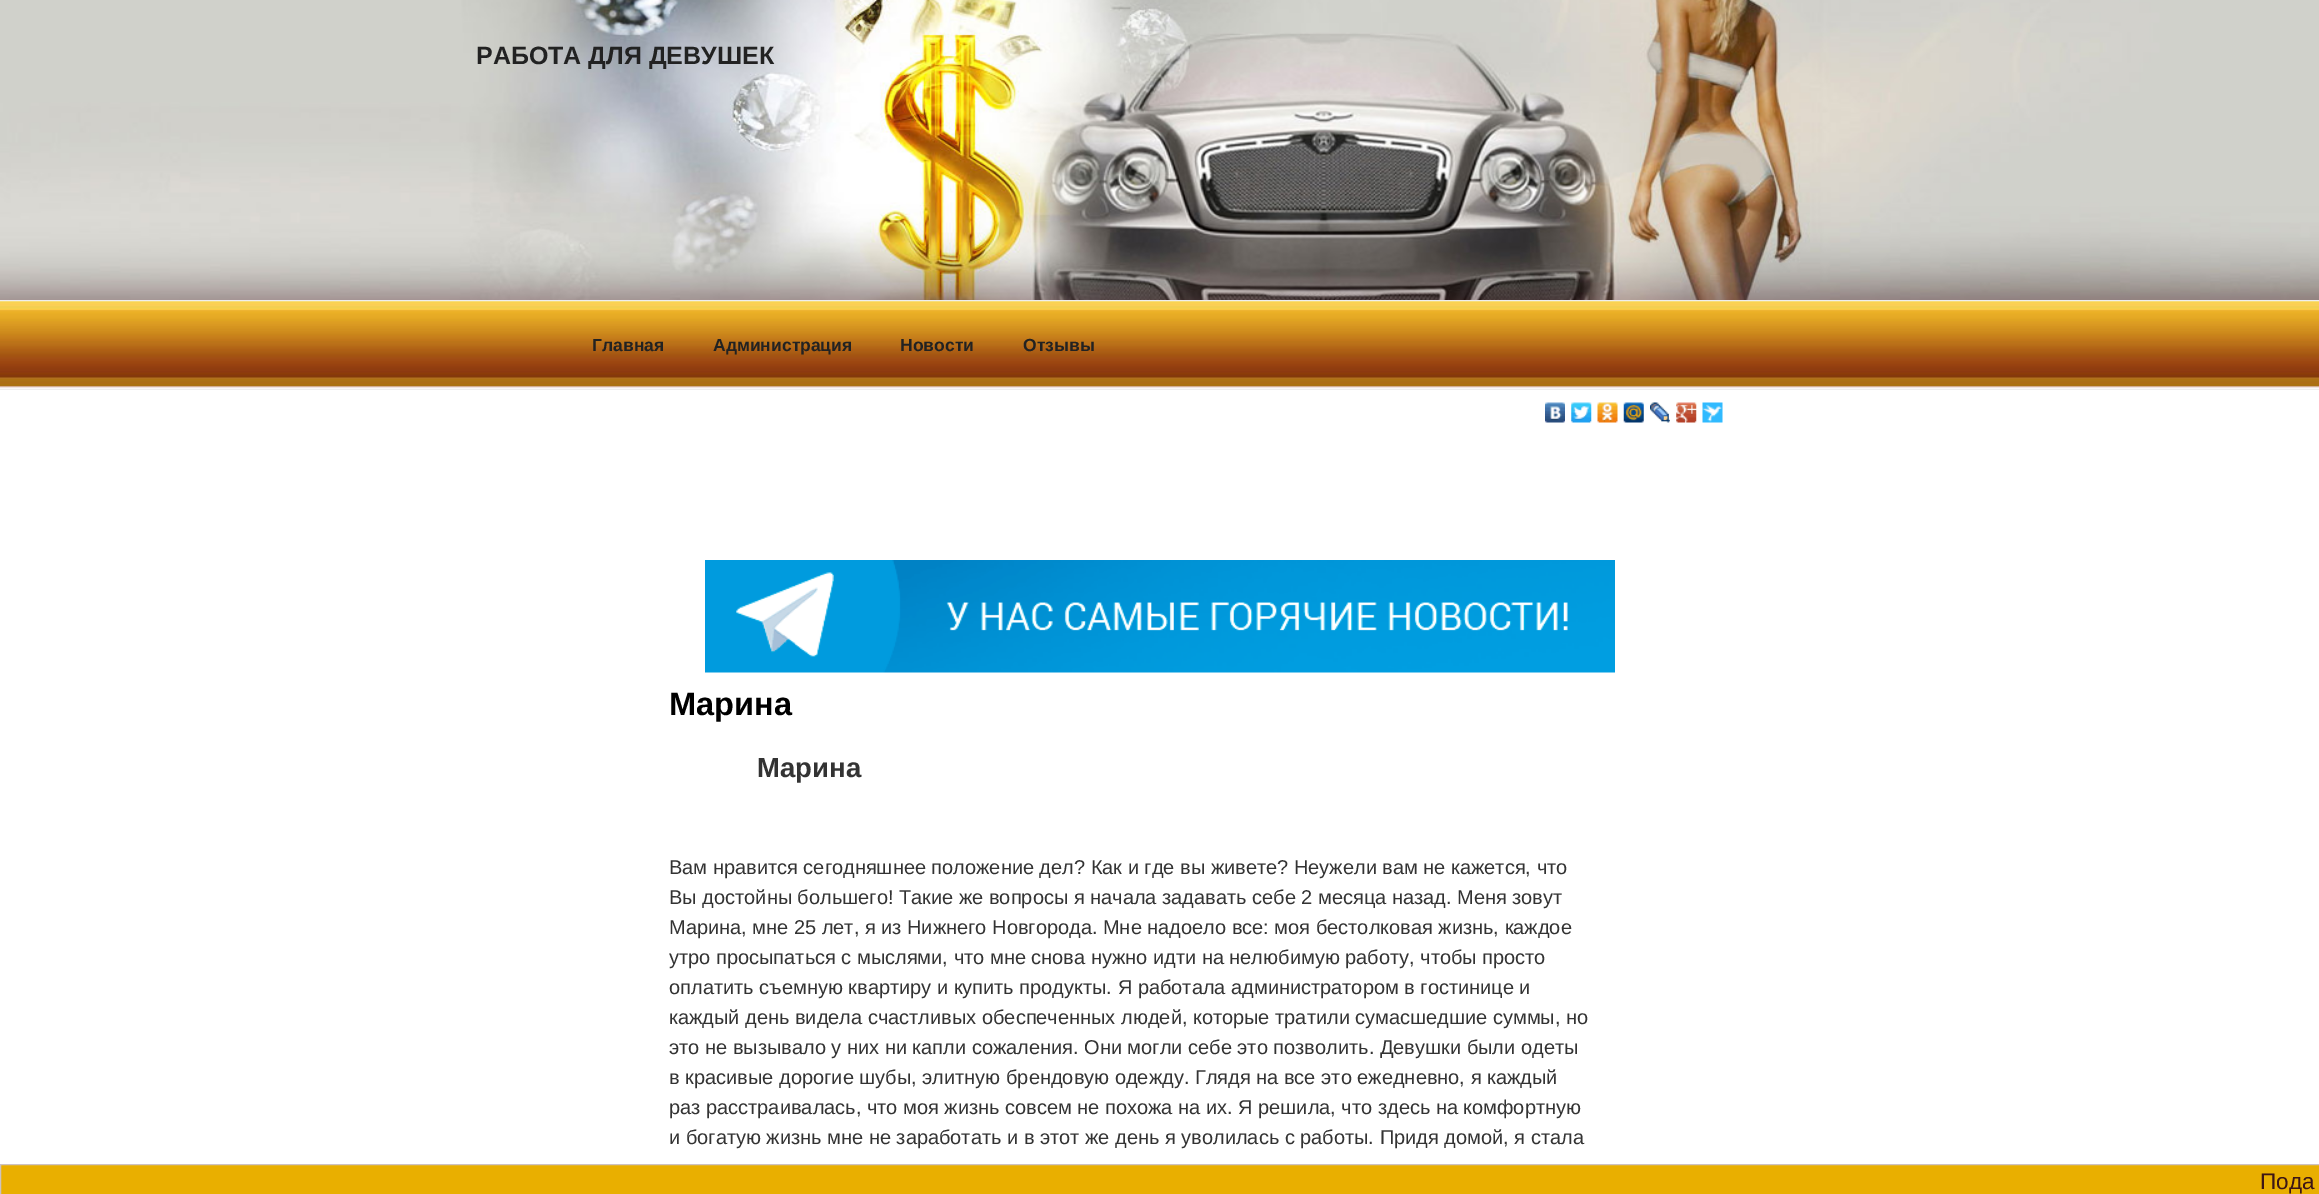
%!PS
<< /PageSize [2319 1194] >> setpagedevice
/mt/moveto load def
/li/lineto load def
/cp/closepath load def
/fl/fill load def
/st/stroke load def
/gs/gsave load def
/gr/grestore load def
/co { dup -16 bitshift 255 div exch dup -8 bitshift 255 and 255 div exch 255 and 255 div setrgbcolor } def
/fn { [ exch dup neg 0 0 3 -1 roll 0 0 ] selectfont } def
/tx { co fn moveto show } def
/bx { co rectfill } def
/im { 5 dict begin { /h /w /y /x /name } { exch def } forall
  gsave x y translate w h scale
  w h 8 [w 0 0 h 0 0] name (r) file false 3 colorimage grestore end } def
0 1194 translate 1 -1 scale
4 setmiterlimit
0 0 2319 1194 16#FFFFFF bx
0 301 2319 88 16#FAFAFA bx
(media/1.raw) 0 0 2319 300 im
(media/2.raw) 0 301 2319 87 im
0 300 2319 1 16#EEEEEE bx
0 389 2319 1 16#EEEEEE bx
(media/3.raw) 1545 402 20 21 im
(media/4.raw) 1571 402 21 21 im
(media/5.raw) 1597 402 21 21 im
(media/6.raw) 1623 402 21 21 im
(media/7.raw) 1650 402 20 21 im
(media/8.raw) 1676 402 21 21 im
(media/9.raw) 1702 402 21 21 im
(media/10.raw) 705 560 910 113 im
16#E9AF00 co
.5 1164.5 mt 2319.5 1164.5 li 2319.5 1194.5 li .5 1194.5 li cp gs fl gr
16#CDC2C2 co
st
(РАБОТА ДЛЯ ДЕВУШЕК) 476 64 /LiberationSans-Bold 25 16#222222 tx
(Главная) 592 351 /LiberationSans-Bold 17.5 16#222222 tx
(Администрация) 713 351 /LiberationSans-Bold 17.5 16#222222 tx
(Новости) 900 351 /LiberationSans-Bold 17.5 16#222222 tx
(Отзывы) 1023 351 /LiberationSans-Bold 17.5 16#222222 tx
(Марина) 669 715 /LiberationSans-Bold 32.5 16#000000 tx
(Марина) 757 777 /LiberationSans-Bold 27.5 16#333333 tx
(Вам нравится сегодняшнее положение дел? Как и где вы живете? Неужели вам не кажется, что) 669 874 /LiberationSans-Regular 20 16#333333 tx
(Вы достойны большего! Такие же вопросы я начала задавать себе 2 месяца назад. Меня зовут) 669 904 /LiberationSans-Regular 20 16#333333 tx
(Марина, мне 25 лет, я из Нижнего Новгорода. Мне надоело все: моя бестолковая жизнь, каждое) 669 934 /LiberationSans-Regular 20 16#333333 tx
(утро просыпаться с мыслями, что мне снова нужно идти на нелюбимую работу, чтобы просто) 669 964 /LiberationSans-Regular 20 16#333333 tx
(оплатить съемную квартиру и купить продукты. Я работала администратором в гостинице и) 669 994 /LiberationSans-Regular 20 16#333333 tx
(каждый день видела счастливых обеспеченных людей, которые тратили сумасшедшие суммы, но) 669 1024 /LiberationSans-Regular 20 16#333333 tx
(это не вызывало у них ни капли сожаления. Они могли себе это позволить. Девушки были одеты) 669 1054 /LiberationSans-Regular 20 16#333333 tx
(в красивые дорогие шубы, элитную брендовую одежду. Глядя на все это ежедневно, я каждый) 669 1084 /LiberationSans-Regular 20 16#333333 tx
(раз расстраивалась, что моя жизнь совсем не похожа на их. Я решила, что здесь на комфортную) 669 1114 /LiberationSans-Regular 20 16#333333 tx
(и богатую жизнь мне не заработать и в этот же день я уволилась с работы. Придя домой, я стала) 669 1144 /LiberationSans-Regular 20 16#333333 tx
(Пода) 2260 1189 /LiberationSans-Regular 22.5 16#3D1616 tx
showpage
